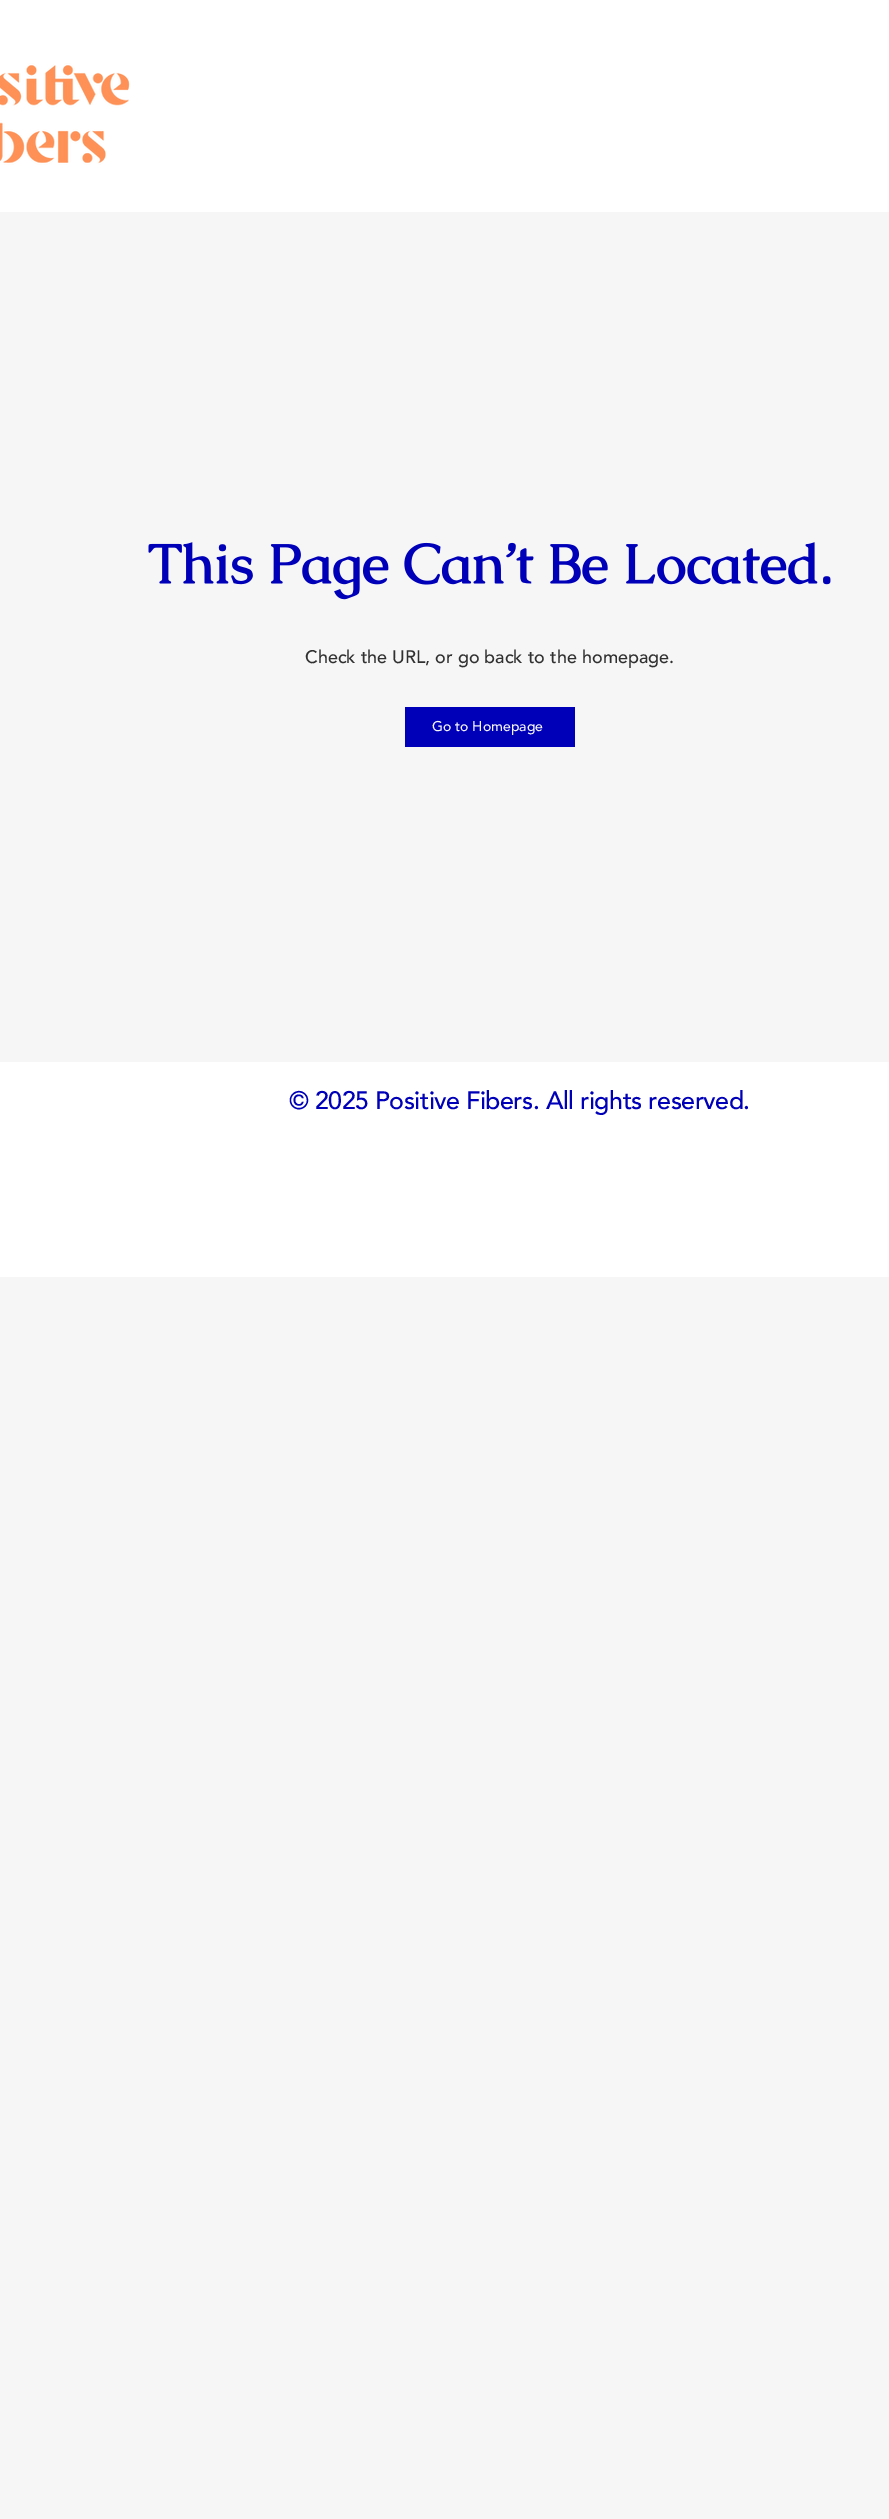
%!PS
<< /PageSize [889 2519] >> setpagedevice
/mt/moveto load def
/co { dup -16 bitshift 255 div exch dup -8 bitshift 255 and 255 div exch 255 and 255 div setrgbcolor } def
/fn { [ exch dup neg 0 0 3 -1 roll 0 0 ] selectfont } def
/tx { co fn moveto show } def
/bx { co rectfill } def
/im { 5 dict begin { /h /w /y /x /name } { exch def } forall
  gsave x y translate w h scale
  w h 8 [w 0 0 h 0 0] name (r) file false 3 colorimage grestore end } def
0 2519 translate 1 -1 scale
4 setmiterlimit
0 0 889 2519 16#F6F6F6 bx
0 0 889 212 16#FFFFFF bx
(media/1.raw) 0 63 130 102 im
(media/2.raw) 148 542 683 58 im
405 707 170 40 16#0000B8 bx
0 1062 889 215 16#FFFFFF bx
(Check the URL, or go back to the homepage.) 305 663 /Avenir-Medium 18 16#303030 tx
(Go to Homepage) 432 731 /Avenir-Medium 14 16#F6F6F6 tx
/Avenir-Medium 25 fn
16#0000B8 co
289 1109 mt -.5 0 (© 2025 Positive Fibers. All rights reserved.) ashow
showpage
